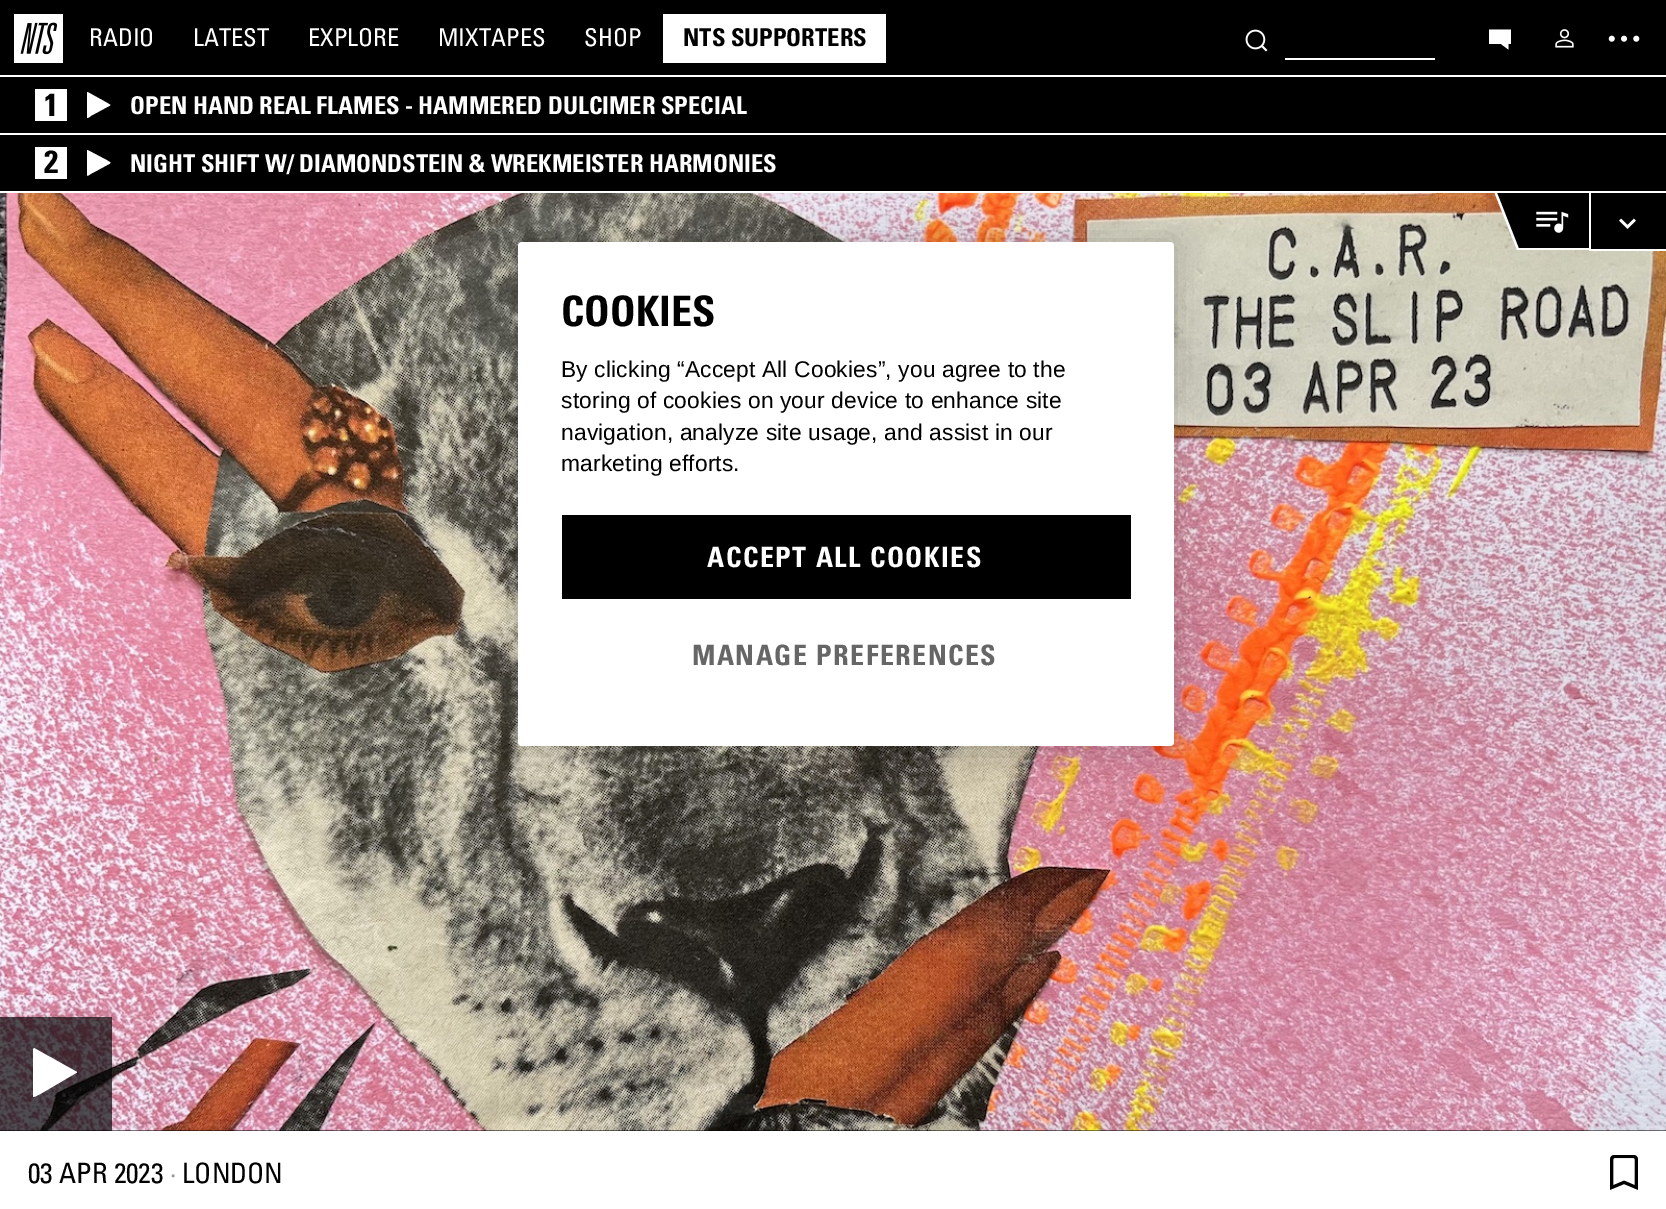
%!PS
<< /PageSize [1666 1209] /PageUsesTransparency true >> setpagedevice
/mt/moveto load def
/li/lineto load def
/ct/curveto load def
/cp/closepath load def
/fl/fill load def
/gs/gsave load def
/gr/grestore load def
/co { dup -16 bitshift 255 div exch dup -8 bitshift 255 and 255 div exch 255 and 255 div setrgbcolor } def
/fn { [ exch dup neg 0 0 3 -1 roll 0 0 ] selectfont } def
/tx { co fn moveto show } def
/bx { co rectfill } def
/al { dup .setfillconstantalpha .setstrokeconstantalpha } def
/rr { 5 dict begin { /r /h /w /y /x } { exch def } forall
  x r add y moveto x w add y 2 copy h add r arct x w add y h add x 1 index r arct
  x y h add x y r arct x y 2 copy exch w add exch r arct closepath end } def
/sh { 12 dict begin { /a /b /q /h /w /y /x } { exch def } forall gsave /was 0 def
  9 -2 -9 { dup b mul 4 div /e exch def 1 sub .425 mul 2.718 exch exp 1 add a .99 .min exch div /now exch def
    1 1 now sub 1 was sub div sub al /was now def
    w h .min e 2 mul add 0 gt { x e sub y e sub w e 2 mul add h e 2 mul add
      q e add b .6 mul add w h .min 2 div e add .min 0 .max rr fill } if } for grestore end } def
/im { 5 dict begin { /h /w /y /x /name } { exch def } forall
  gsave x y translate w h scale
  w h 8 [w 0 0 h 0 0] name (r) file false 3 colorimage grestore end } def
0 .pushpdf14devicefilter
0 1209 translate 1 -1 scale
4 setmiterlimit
0 0 1666 1209 16#000000 bx
0 75 1666 2 16#FFFFFF bx
(media/1.raw) 14 14 49 49 im
663 14 223 49 16#FFFFFF bx
(media/2.raw) 1245 29 23 23 im
1285 58 150 2 16#FFFFFF bx
1511 44 mt 1508.5 44 li 1508.5 49.5 li 1501 44 li 1489 44 li 1489 29.5 li 1511 29.5 li cp fl
(media/3.raw) 1555 29 19 19 im
(media/4.raw) 1608 35 32 7 im
(media/7.raw) 0 193 1666 938 im
1495 193 mt 1589 193 li 1589 250 li 1517 250 li 1495 194 li cp fl
16#000000 co
1589 248 mt 1589 192 li 1497 192 li 1519 248 li cp fl
0 191 1666 2 16#FFFFFF bx
0 133 1666 2 16#FFFFFF bx
35 89 32 32 16#FFFFFF bx
110 105.5 mt 91.5 115.5 li 88 118 87.5 118.5 87 117.5 ct 87 92.5 li 87.5 92 li 106.5 102.5 li 110.5 105 li cp fl
35 147 32 32 16#FFFFFF bx
110 163.5 mt 91.5 173.5 li 88 175.5 87.5 176.5 87 175 ct 87 150.5 li 87.5 150 li 106.5 160 li 110.5 162.5 li cp fl
(media/5.raw) 1536 211 33 22 im
1591 193 75 56 16#000000 bx
1589 249 77 2 16#FFFFFF bx
1589 193 2 57 16#FFFFFF bx
(media/6.raw) 1619 218 17 11 im
0 1131 1666 78 16#FFFFFF bx
gs
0 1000 mt 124 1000 li 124 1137 li 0 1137 li cp 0 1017 mt 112 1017 li 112 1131 li 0 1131 li cp eoclip newpath
16#000000 co
0 1012 112 113 0 3.5 .06 sh
gr
0.68 al
0 1017 112 114 16#000000 bx
1 al
16#FFFFFF co
76 1073 mt 42 1093 li 34 1097 33 1098 33 1096 ct 33 1049 li 34 1048 li 77 1072 li 77 1072 77 1073 76 1073 ct cp fl
(media/8.raw) 1610 1155 28 35 im
16#000000 co
518 242 656 504 4 16 .2 sh
16#FFFFFF co
518 242 656 504 4 rr fl
562 515 569 84 16#000000 bx
(RADIO) 89 46 /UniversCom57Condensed-Regular 24.5 16#FFFFFF tx
(LATEST) 193 46 /UniversCom57Condensed-Regular 24.5 16#FFFFFF tx
(EXPLORE) 308 46 /UniversCom57Condensed-Regular 24.5 16#FFFFFF tx
(MIXTAPES) 438 46 /UniversCom57Condensed-Regular 24.5 16#FFFFFF tx
(SHOP) 584 46 /UniversCom57Condensed-Regular 24.5 16#FFFFFF tx
(NTS SUPPORTERS) 683 46 /Univers-Bold 24.5 16#000000 tx
(1) 44 116 /Univers-Bold 32 16#000000 tx
(OPEN HAND REAL FLAMES - HAMMERED DULCIMER SPECIAL) 130 114 /Univers-Bold 24.5 16#FFFFFF tx
(2) 44 173 /Univers-Bold 32 16#000000 tx
(NIGHT SHIFT W/ DIAMONDSTEIN & WREKMEISTER HARMONIES) 130 172 /Univers-Bold 24.5 16#FFFFFF tx
(03 APR 2023) 28 1183 /UniversCom57Condensed-Regular 28 16#000000 tx
(·) 170 1183 /UniversCom57Condensed-Regular 28 16#999999 tx
(LONDON) 182 1183 /UniversCom57Condensed-Regular 28 16#000000 tx
(COOKIES) 561 326 /Univers-Bold 42 16#000000 tx
/LiberationSans-Regular 22.75 fn
561 377 mt .18 0 (By clicking “Accept All Cookies”, you agree to the) ashow
561 408 mt .18 0 (storing of cookies on your device to enhance site) ashow
561 440 mt .18 0 (navigation, analyze site usage, and assist in our) ashow
561 471 mt .18 0 (marketing efforts.) ashow
/Univers-Bold 28 fn
16#FFFFFF co
707 567 mt 1.5 0 (ACCEPT ALL COOKIES) ashow
16#666666 co
692 665 mt 1.5 0 (MANAGE PREFERENCES) ashow
.poppdf14devicefilter showpage
